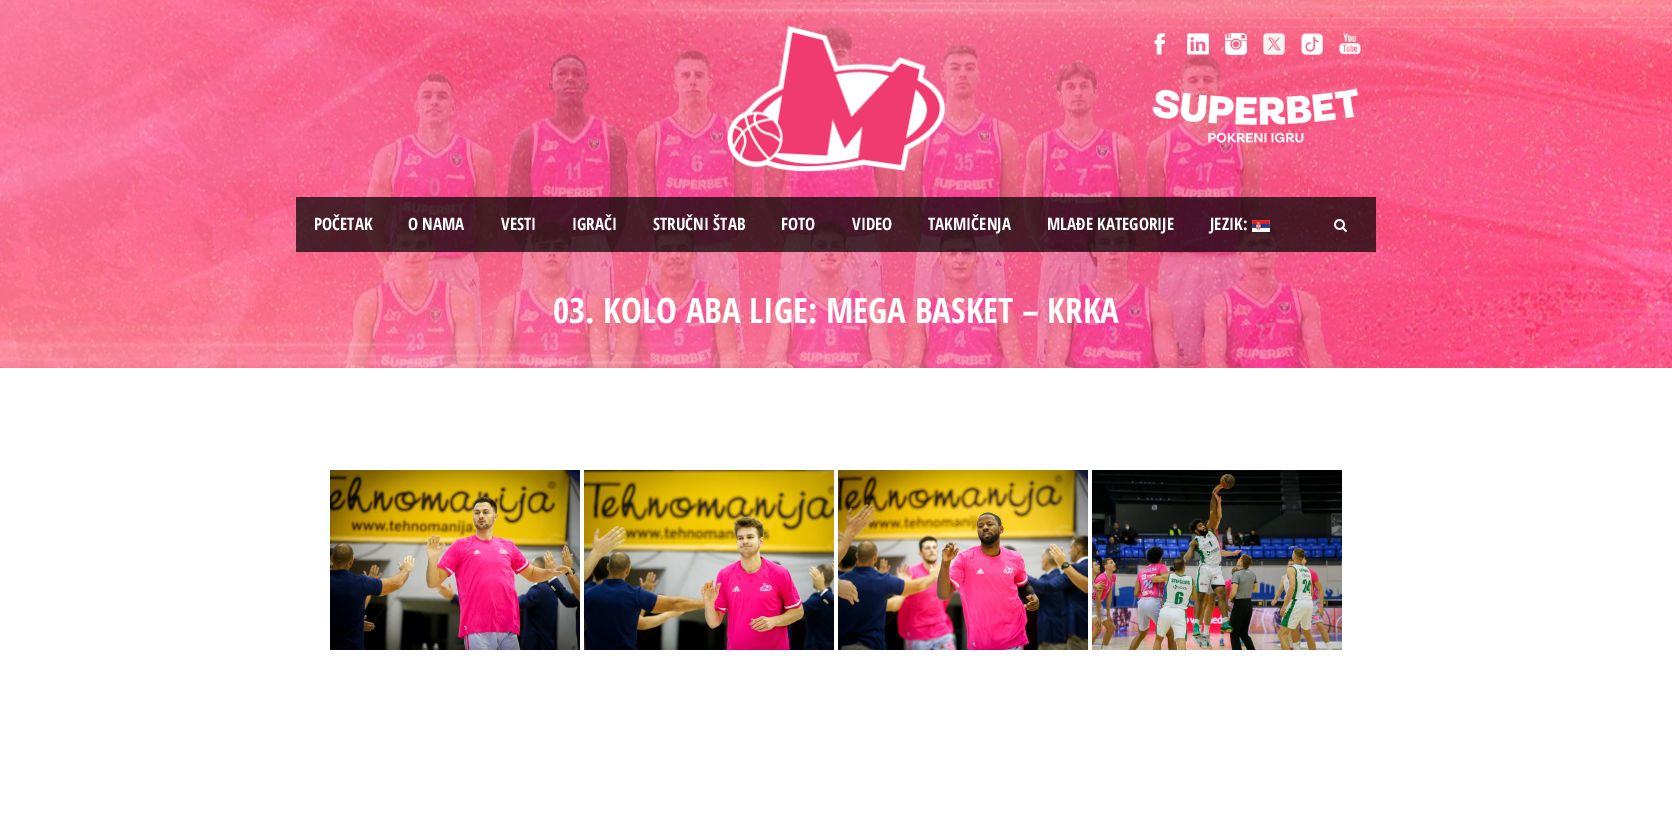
%!PS
<< /PageSize [1672 836] /PageUsesTransparency true >> setpagedevice
/co { dup -16 bitshift 255 div exch dup -8 bitshift 255 and 255 div exch 255 and 255 div setrgbcolor } def
/fn { [ exch dup neg 0 0 3 -1 roll 0 0 ] selectfont } def
/tx { co fn moveto show } def
/bx { co rectfill } def
/al { dup .setfillconstantalpha .setstrokeconstantalpha } def
/im { 5 dict begin { /h /w /y /x /name } { exch def } forall
  gsave x y translate w h scale
  w h 8 [w 0 0 h 0 0] name (r) file false 3 colorimage grestore end } def
0 .pushpdf14devicefilter
0 836 translate 1 -1 scale
4 setmiterlimit
0 0 1672 836 16#FFFFFF bx
(media/1.raw) 0 0 1672 368 im
(media/2.raw) 1154 33 11 22 im
(media/3.raw) 1187 33 22 22 im
(media/4.raw) 1225 33 22 22 im
(media/5.raw) 1263 33 22 22 im
(media/6.raw) 1301 33 22 22 im
(media/7.raw) 1339 33 22 22 im
(media/8.raw) 1152 88 207 55 im
(media/9.raw) 727 25 219 147 im
0.7 al
296 197 1080 55 16#000000 bx
1 al
(media/10.raw) 1252 220 18 12 im
(media/11.raw) 1334 219 13 13 im
(media/12.raw) 330 470 250 180 im
(media/13.raw) 584 470 250 180 im
(media/14.raw) 838 470 250 180 im
(media/15.raw) 1092 470 250 180 im
(PОČETAK) 314 230 /OpenSansCondensed-Bold 17 16#FFFFFF tx
(O NAMA) 408 230 /OpenSansCondensed-Bold 17 16#FFFFFF tx
(VESTI) 501 230 /OpenSansCondensed-Bold 17 16#FFFFFF tx
(IGRAČI) 572 230 /OpenSansCondensed-Bold 17 16#FFFFFF tx
(STRUČNI ŠTAB) 653 230 /OpenSansCondensed-Bold 17 16#FFFFFF tx
(FOTO) 781 230 /OpenSansCondensed-Bold 17 16#FFFFFF tx
(VIDEO) 852 230 /OpenSansCondensed-Bold 17 16#FFFFFF tx
(TAKMIČENJA) 928 230 /OpenSansCondensed-Bold 17 16#FFFFFF tx
(MLAĐE KATEGORIJE) 1047 230 /OpenSansCondensed-Bold 17 16#FFFFFF tx
(JEZIK:) 1210 230 /OpenSansCondensed-Bold 17 16#FFFFFF tx
(03. KOLO ABA LIGE: MEGA BASKET – KRKA) 553 323 /OpenSansCondensed-Bold 35 16#FFFFFF tx
.poppdf14devicefilter showpage
